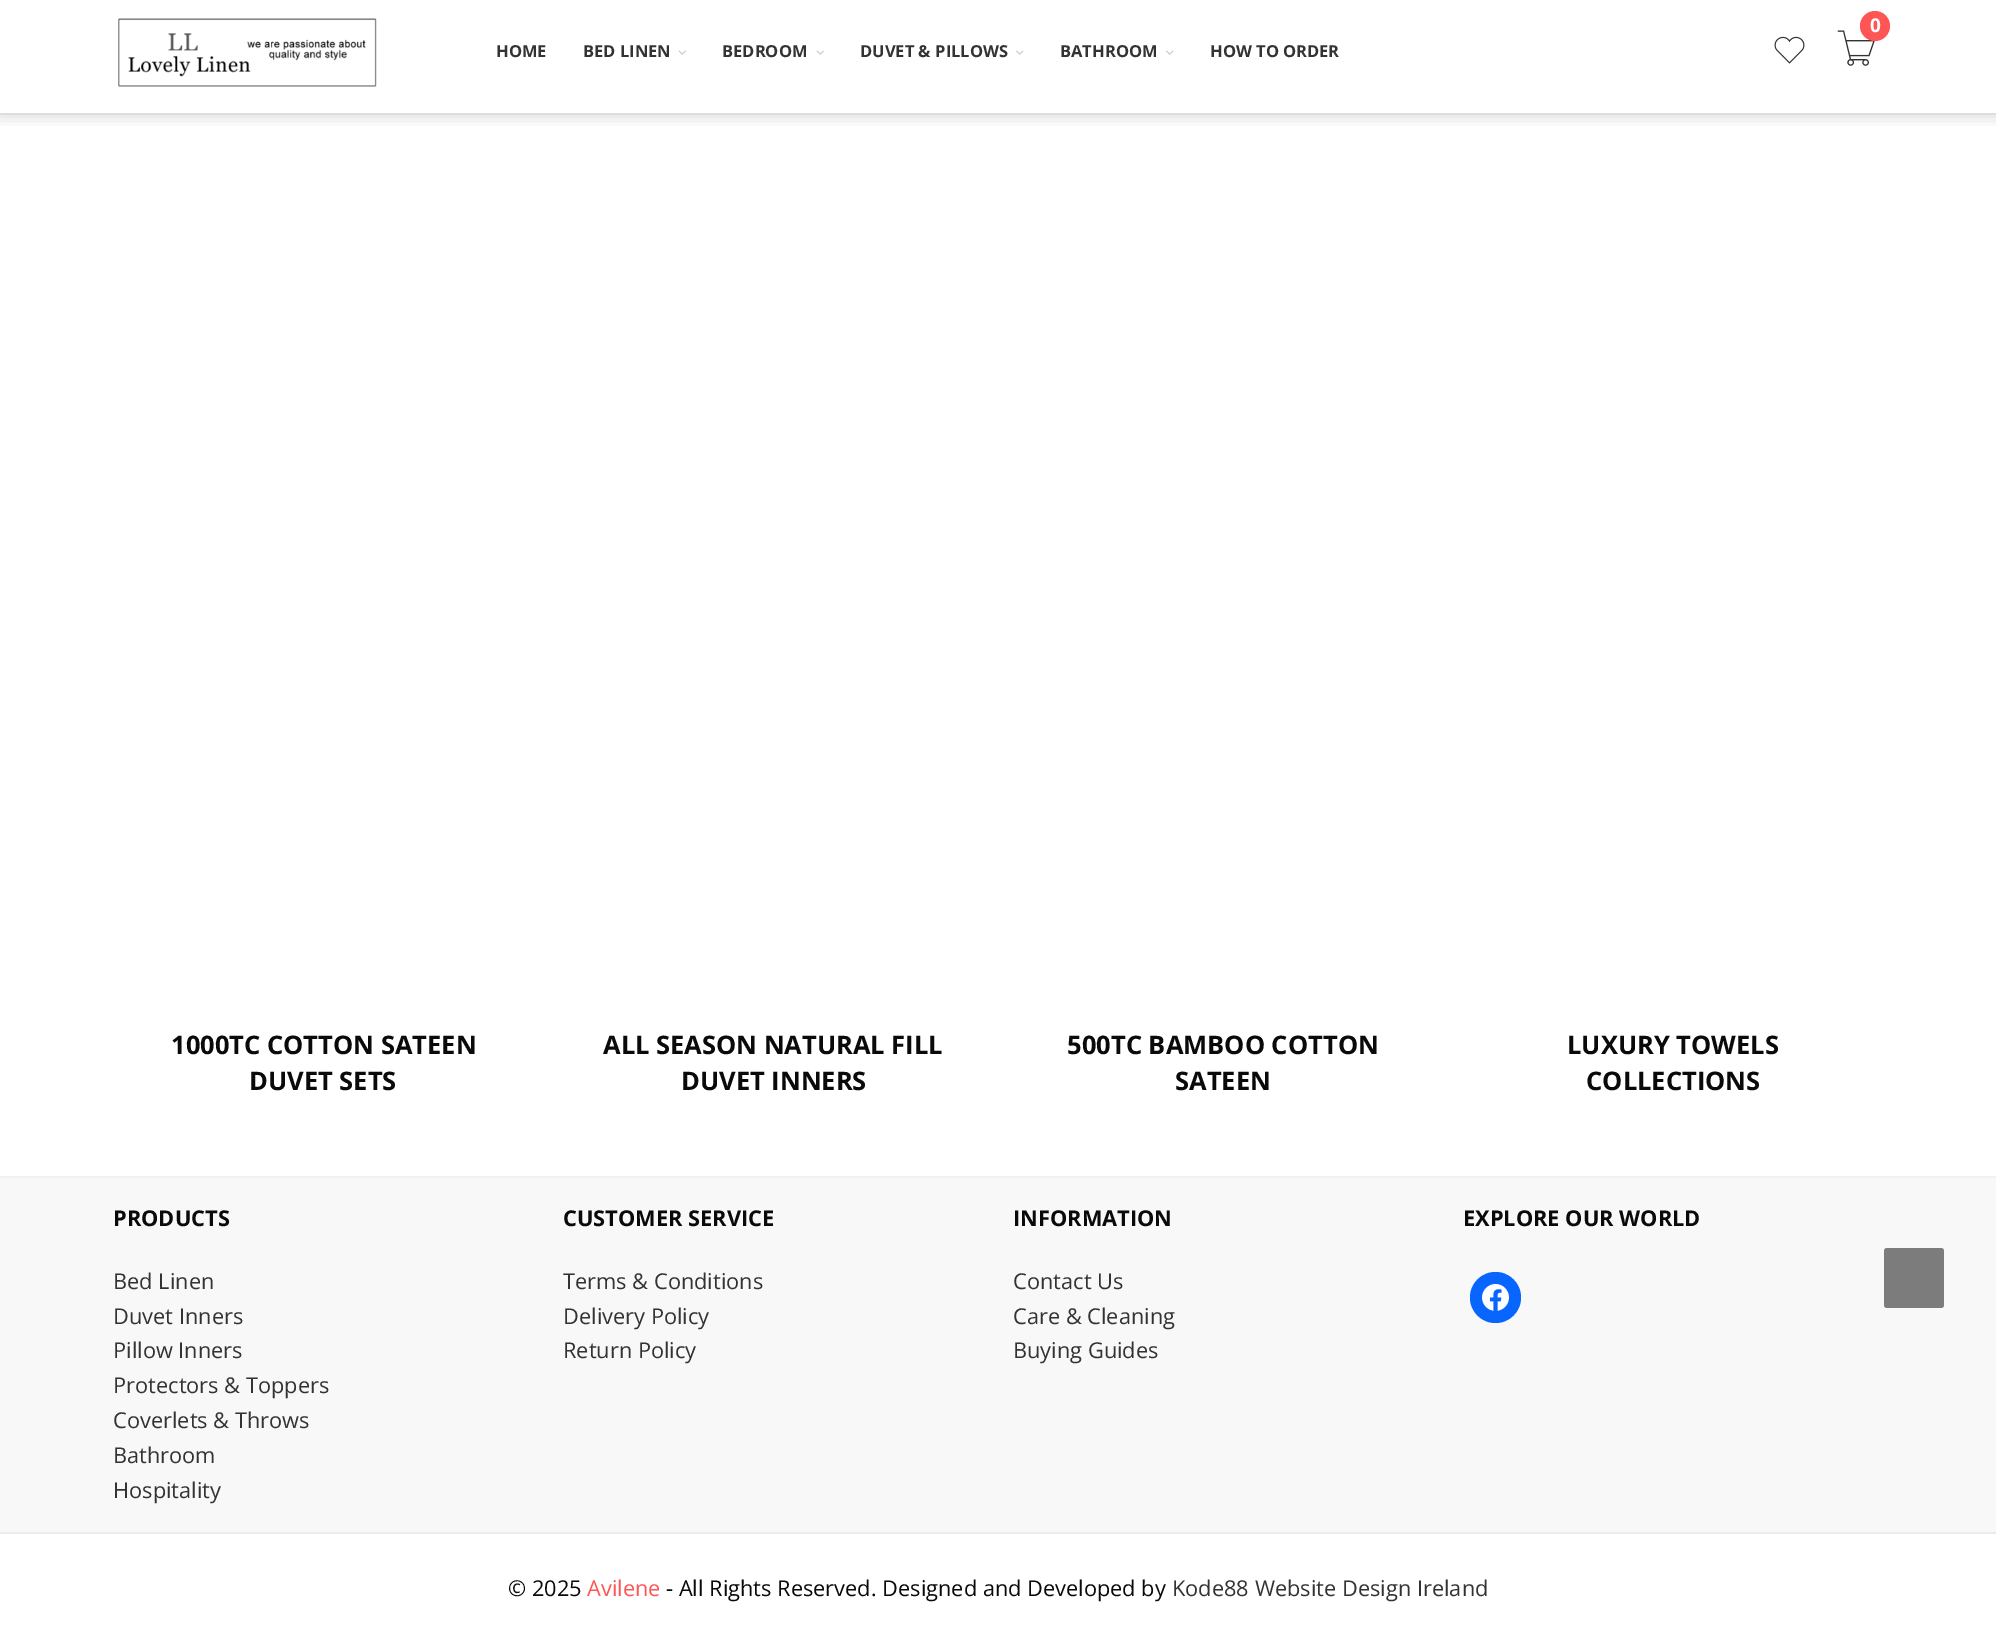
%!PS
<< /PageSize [1996 1634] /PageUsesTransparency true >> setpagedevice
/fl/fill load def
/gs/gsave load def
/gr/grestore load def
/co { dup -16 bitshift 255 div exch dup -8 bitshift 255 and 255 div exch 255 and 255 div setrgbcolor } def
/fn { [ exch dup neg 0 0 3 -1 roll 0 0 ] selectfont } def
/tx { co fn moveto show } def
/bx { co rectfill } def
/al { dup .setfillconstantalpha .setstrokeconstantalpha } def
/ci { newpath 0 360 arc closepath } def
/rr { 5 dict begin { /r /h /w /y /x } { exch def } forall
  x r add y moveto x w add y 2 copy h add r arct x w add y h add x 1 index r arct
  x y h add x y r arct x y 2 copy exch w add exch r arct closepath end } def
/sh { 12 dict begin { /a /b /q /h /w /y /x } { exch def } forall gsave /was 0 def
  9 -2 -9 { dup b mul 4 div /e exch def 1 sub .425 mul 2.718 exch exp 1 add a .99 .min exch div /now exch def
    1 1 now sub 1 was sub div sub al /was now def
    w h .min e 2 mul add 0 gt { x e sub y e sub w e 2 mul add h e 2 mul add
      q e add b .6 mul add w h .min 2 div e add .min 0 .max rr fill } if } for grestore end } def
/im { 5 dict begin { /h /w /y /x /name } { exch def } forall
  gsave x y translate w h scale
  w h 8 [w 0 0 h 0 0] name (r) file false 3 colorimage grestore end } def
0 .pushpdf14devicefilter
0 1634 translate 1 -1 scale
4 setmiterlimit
0 0 1996 1634 16#FFFFFF bx
gs
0 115 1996 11 rectclip
16#000000 co
0 2 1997 114 0 9 .15 sh
gr
0 113 1996 2 16#DDDDDD bx
(media/1.raw) 118 18 259 69 im
(media/2.raw) 1837 30 38 36 im
16#FF5555 co
1875 26 15 ci fl
(media/3.raw) 1774 36 31 28 im
(media/4.raw) 678 50 8 5 im
(media/4.raw) 816 50 8 5 im
(media/5.raw) 1016 50 8 5 im
(media/5.raw) 1166 50 8 5 im
0 1178 1996 354 16#F8F8F8 bx
0 1176 1996 2 16#F1F1F1 bx
16#0866FF co
1495.5 1297.5 25.5 ci fl
(media/6.raw) 1482 1283 27 28 im
0 1532 1996 2 16#ECECEC bx
16#7C7C7C co
1884 1248 60 60 3 rr fl
(0) 1870 32 /OpenSans-Bold 19 16#FFFFFF tx
(HOME) 496 57 /OpenSans-Bold 16.5 16#333333 tx
(BED LINEN) 583 57 /OpenSans-Bold 16.5 16#333333 tx
(BEDROOM) 722 57 /OpenSans-Bold 16.5 16#333333 tx
(DUVET & PILLOWS) 860 57 /OpenSans-Bold 16.5 16#333333 tx
(BATHROOM) 1060 57 /OpenSans-Bold 16.5 16#333333 tx
(HOW TO ORDER) 1210 57 /OpenSans-Bold 16.5 16#333333 tx
(1000TC COTTON SATEEN) 171 1054 /OpenSans-Bold 25.5 16#0A0A0A tx
(DUVET SETS) 249 1090 /OpenSans-Bold 25.5 16#0A0A0A tx
(ALL SEASON NATURAL FILL) 603 1054 /OpenSans-Bold 25.5 16#0A0A0A tx
(DUVET INNERS) 681 1090 /OpenSans-Bold 25.5 16#0A0A0A tx
(500TC BAMBOO COTTON) 1067 1054 /OpenSans-Bold 25.5 16#0A0A0A tx
(SATEEN) 1175 1090 /OpenSans-Bold 25.5 16#0A0A0A tx
(LUXURY TOWELS) 1567 1054 /OpenSans-Bold 25.5 16#0A0A0A tx
(COLLECTIONS) 1586 1090 /OpenSans-Bold 25.5 16#0A0A0A tx
(PRODUCTS) 113 1226 /OpenSans-Bold 21.8 16#0A0A0A tx
(Bed Linen) 113 1289 /OpenSans-Regular 21.8 16#333333 tx
(Duvet Inners) 113 1324 /OpenSans-Regular 21.8 16#333333 tx
(Pillow Inners) 113 1358 /OpenSans-Regular 21.8 16#333333 tx
(Protectors & Toppers) 113 1393 /OpenSans-Regular 21.8 16#333333 tx
(Coverlets & Throws) 113 1428 /OpenSans-Regular 21.8 16#333333 tx
(Bathroom) 113 1463 /OpenSans-Regular 21.8 16#333333 tx
(Hospitality) 113 1498 /OpenSans-Regular 21.8 16#333333 tx
(CUSTOMER SERVICE) 563 1226 /OpenSans-Bold 21.8 16#0A0A0A tx
(Terms & Conditions) 563 1289 /OpenSans-Regular 21.8 16#333333 tx
(Delivery Policy) 563 1324 /OpenSans-Regular 21.8 16#333333 tx
(Return Policy) 563 1358 /OpenSans-Regular 21.8 16#333333 tx
(INFORMATION) 1013 1226 /OpenSans-Bold 21.8 16#0A0A0A tx
(Contact Us) 1013 1289 /OpenSans-Regular 21.8 16#333333 tx
(Care & Cleaning) 1013 1324 /OpenSans-Regular 21.8 16#333333 tx
(Buying Guides) 1013 1358 /OpenSans-Regular 21.8 16#333333 tx
(EXPLORE OUR WORLD) 1463 1226 /OpenSans-Bold 21.8 16#0A0A0A tx
(© 2025) 508 1596 /OpenSans-Regular 21.8 16#0A0A0A tx
(Avilene) 587 1596 /OpenSans-Regular 21.8 16#FF5555 tx
(- All Rights Reserved. Designed and Developed by) 666 1596 /OpenSans-Regular 21.8 16#0A0A0A tx
(Kode88 Website Design Ireland) 1172 1596 /OpenSans-Regular 21.8 16#333333 tx
.poppdf14devicefilter showpage
